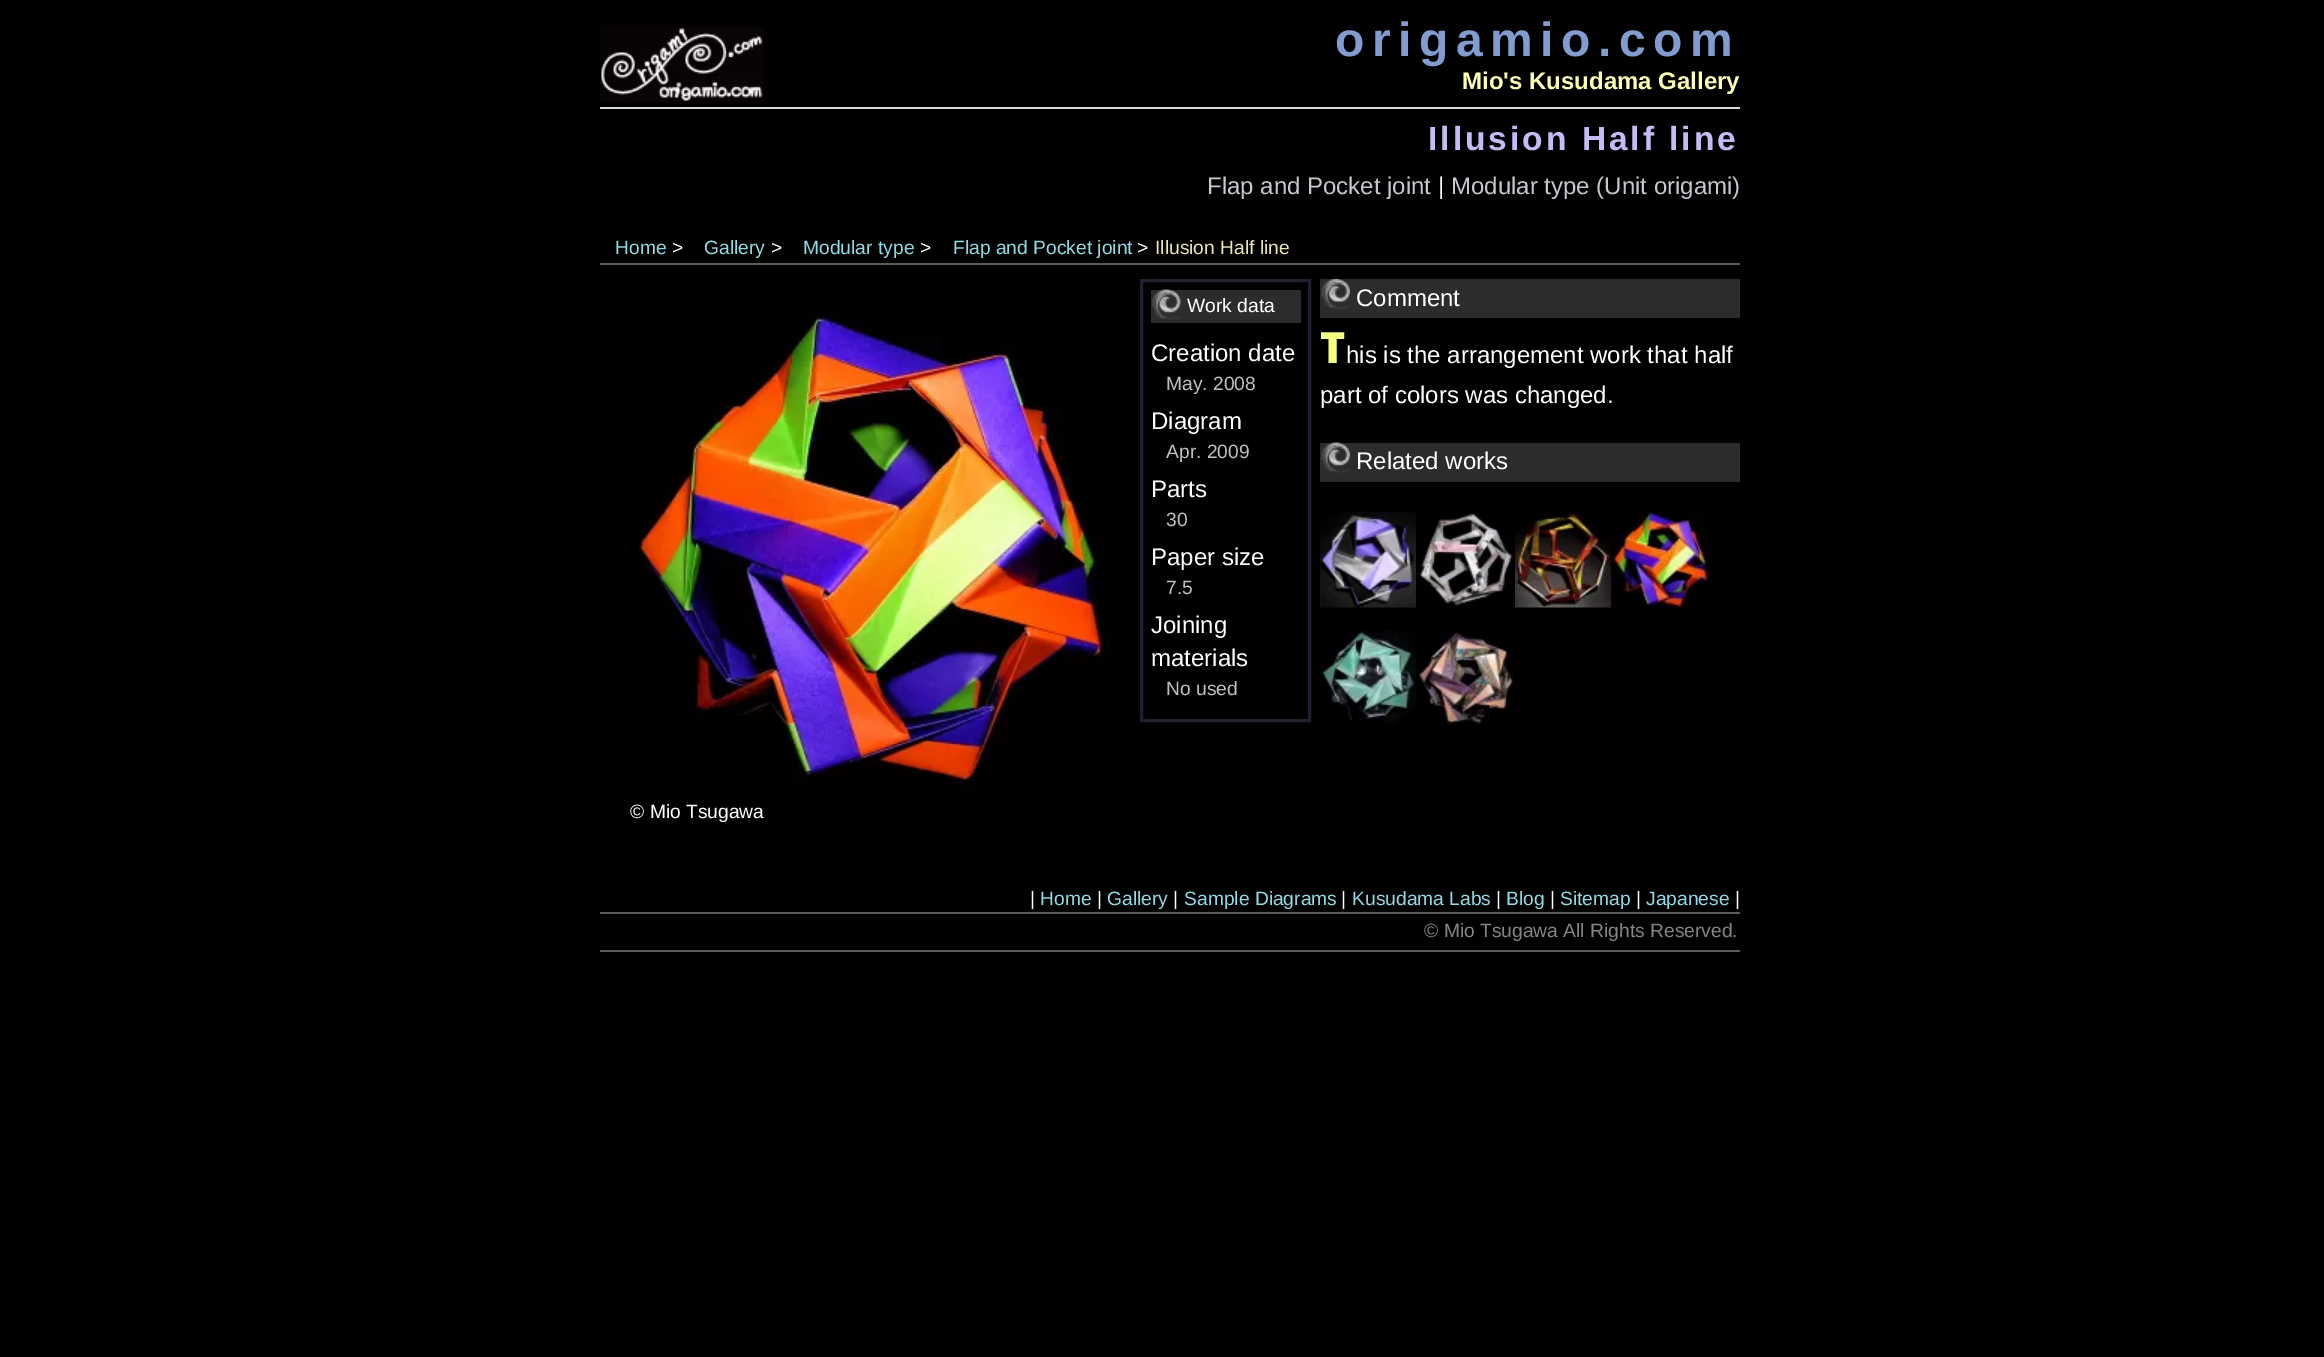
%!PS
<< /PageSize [2324 1357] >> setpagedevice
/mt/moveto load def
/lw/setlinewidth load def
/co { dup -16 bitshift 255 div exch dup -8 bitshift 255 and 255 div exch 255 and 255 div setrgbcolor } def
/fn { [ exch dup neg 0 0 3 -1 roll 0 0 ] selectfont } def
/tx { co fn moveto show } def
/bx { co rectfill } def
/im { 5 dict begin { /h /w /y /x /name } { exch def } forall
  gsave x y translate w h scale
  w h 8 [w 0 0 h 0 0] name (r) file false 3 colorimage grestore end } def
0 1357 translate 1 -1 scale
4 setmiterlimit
0 0 2324 1357 16#000000 bx
(media/1.raw) 600 27 164 75 im
600 107 1140 2 16#DBDBDB bx
600 263 1140 2 16#5B5B5B bx
16#1F1F2E co
3 lw
1141.5 280.5 168 440 rectstroke
1151 290 150 33 16#2C2C2C bx
(media/2.raw) 1152 289 29 31 im
1320 279 420 39 16#2C2C2C bx
(media/3.raw) 1321 279 29 30 im
1320 443 420 39 16#2C2C2C bx
(media/4.raw) 1321 442 29 31 im
(media/5.raw) 1320 511 96 97 im
(media/6.raw) 1418 513 95 94 im
(media/7.raw) 1515 511 96 97 im
(media/8.raw) 1612 511 97 97 im
(media/9.raw) 1320 630 96 94 im
(media/10.raw) 1418 630 96 96 im
(media/11.raw) 638 309 472 480 im
600 912 1140 2 16#5B5B5B bx
600 950 1140 2 16#5B5B5B bx
/LiberationSans-Bold 48 fn
16#819CCF co
1335 56 mt 7.5 0 (origamio.com) ashow
(Mio's Kusudama Gallery) 1462 89 /LiberationSans-Bold 24 16#FCFFB1 tx
/LiberationSans-Bold 33.5 fn
16#C4BCF6 co
1428 150 mt 3 0 (Illusion Half line) ashow
(Flap and Pocket joint) 1207 194 /LiberationSans-Regular 24 16#C6C8D0 tx
(|) 1438 194 /LiberationSans-Regular 24 16#FFFFFF tx
(Modular type \(Unit origami\)) 1451 194 /LiberationSans-Regular 24 16#C6C8D0 tx
(Home) 615 254 /LiberationSans-Regular 19.25 16#91D9E3 tx
(>) 672 254 /LiberationSans-Regular 19.25 16#FFFFFF tx
(Gallery) 704 254 /LiberationSans-Regular 19.25 16#91D9E3 tx
(>) 771 254 /LiberationSans-Regular 19.25 16#FFFFFF tx
(Modular type) 803 254 /LiberationSans-Regular 19.25 16#91D9E3 tx
(>) 920 254 /LiberationSans-Regular 19.25 16#FFFFFF tx
(Flap and Pocket joint) 953 254 /LiberationSans-Regular 19.25 16#91D9E3 tx
(>) 1137 254 /LiberationSans-Regular 19.25 16#FFFFFF tx
(Illusion Half line) 1155 254 /LiberationSans-Regular 19.25 16#E9E7B4 tx
(Work data) 1187 312 /LiberationSans-Regular 19.25 16#FFFFFF tx
(Creation date) 1151 361 /LiberationSans-Regular 24 16#FFFFFF tx
(May. 2008) 1166 390 /LiberationSans-Regular 19.25 16#C0C0C0 tx
(Diagram) 1151 429 /LiberationSans-Regular 24 16#FFFFFF tx
(Apr. 2009) 1166 458 /LiberationSans-Regular 19.25 16#C0C0C0 tx
(Parts) 1151 497 /LiberationSans-Regular 24 16#FFFFFF tx
(30) 1166 526 /LiberationSans-Regular 19.25 16#C0C0C0 tx
(Paper size) 1151 565 /LiberationSans-Regular 24 16#FFFFFF tx
(7.5) 1166 594 /LiberationSans-Regular 19.25 16#C0C0C0 tx
(Joining) 1151 633 /LiberationSans-Regular 24 16#FFFFFF tx
(materials) 1151 666 /LiberationSans-Regular 24 16#FFFFFF tx
(No used) 1166 695 /LiberationSans-Regular 19.25 16#C0C0C0 tx
(Comment) 1356 306 /LiberationSans-Regular 24 16#FFFFFF tx
(T) 1320 363 /NotoSans-Black 43 16#F5FF80 tx
(his is the arrangement work that half) 1346 363 /LiberationSans-Regular 24 16#FFFFFF tx
(part of colors was changed.) 1320 403 /LiberationSans-Regular 24 16#FFFFFF tx
(Related works) 1356 469 /LiberationSans-Regular 24 16#FFFFFF tx
(© Mio Tsugawa) 630 818 /LiberationSans-Regular 19.25 16#FFFFFF tx
(|) 1030 905 /LiberationSans-Regular 19.25 16#FFFFFF tx
(Home) 1040 905 /LiberationSans-Regular 19.25 16#91D9E3 tx
(|) 1097 905 /LiberationSans-Regular 19.25 16#FFFFFF tx
(Gallery) 1107 905 /LiberationSans-Regular 19.25 16#91D9E3 tx
(|) 1173 905 /LiberationSans-Regular 19.25 16#FFFFFF tx
(Sample Diagrams) 1184 905 /LiberationSans-Regular 19.25 16#91D9E3 tx
(|) 1341 905 /LiberationSans-Regular 19.25 16#FFFFFF tx
(Kusudama Labs) 1352 905 /LiberationSans-Regular 19.25 16#91D9E3 tx
(|) 1496 905 /LiberationSans-Regular 19.25 16#FFFFFF tx
(Blog) 1506 905 /LiberationSans-Regular 19.25 16#91D9E3 tx
(|) 1550 905 /LiberationSans-Regular 19.25 16#FFFFFF tx
(Sitemap) 1560 905 /LiberationSans-Regular 19.25 16#91D9E3 tx
(|) 1636 905 /LiberationSans-Regular 19.25 16#FFFFFF tx
(Japanese) 1646 905 /LiberationSans-Regular 19.25 16#91D9E3 tx
(|) 1735 905 /LiberationSans-Regular 19.25 16#FFFFFF tx
(© Mio Tsugawa All Rights Reserved.) 1424 937 /LiberationSans-Regular 19.25 16#848484 tx
showpage
